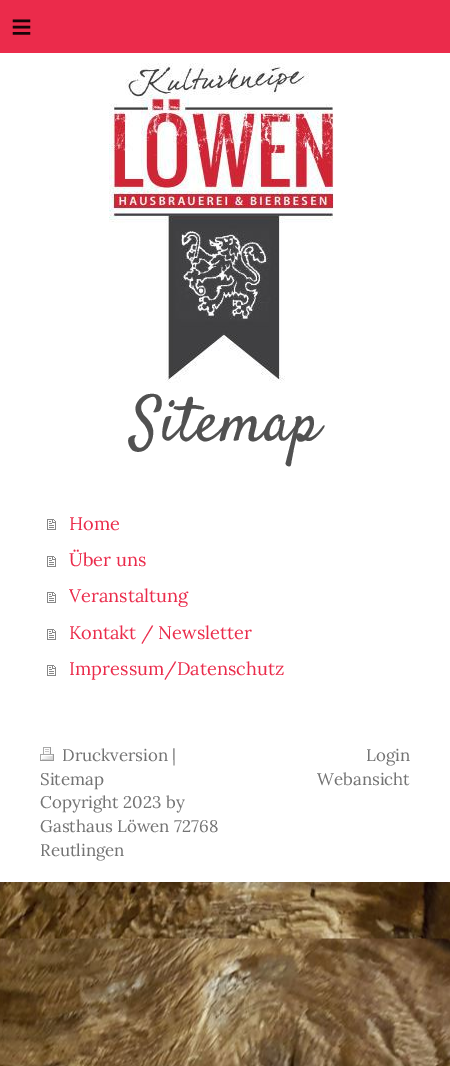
%!PS
<< /PageSize [450 1066] >> setpagedevice
/mt/moveto load def
/co { dup -16 bitshift 255 div exch dup -8 bitshift 255 and 255 div exch 255 and 255 div setrgbcolor } def
/fn { [ exch dup neg 0 0 3 -1 roll 0 0 ] selectfont } def
/tx { co fn moveto show } def
/bx { co rectfill } def
/im { 5 dict begin { /h /w /y /x /name } { exch def } forall
  gsave x y translate w h scale
  w h 8 [w 0 0 h 0 0] name (r) file false 3 colorimage grestore end } def
0 1066 translate 1 -1 scale
4 setmiterlimit
0 0 450 1066 16#FFFFFF bx
(media/1.raw) 0 882 450 184 im
0 0 450 53 16#EB2B4B bx
(media/2.raw) 109 63 225 320 im
(media/3.raw) 47 519 9 11 im
(media/3.raw) 47 556 9 11 im
(media/3.raw) 47 592 9 11 im
(media/3.raw) 47 629 9 11 im
(media/3.raw) 47 665 9 11 im
(media/4.raw) 40 747 14 14 im
/LiberationSans-Regular 36 fn
16#180408 co
11 39 mt 10 0 (≡) ashow
(Sitemap) 131 440 /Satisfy-Regular 62.5 16#515151 tx
(Home) 69 530 /Lora-Regular 18.25 16#EB2B4B tx
(Über uns) 69 566 /Lora-Regular 18.25 16#EB2B4B tx
(Veranstaltung) 69 602 /Lora-Regular 18.25 16#EB2B4B tx
(Kontakt / Newsletter) 69 639 /Lora-Regular 18.25 16#EB2B4B tx
(Impressum/Datenschutz) 69 675 /Lora-Regular 18.25 16#EB2B4B tx
(Druckversion |) 62 761 /Lora-Regular 16.9 16#737373 tx
(Sitemap) 40 785 /Lora-Regular 16.9 16#737373 tx
(Copyright 2023 by) 40 808 /Lora-Regular 16.9 16#737373 tx
(Gasthaus Löwen 72768) 40 832 /Lora-Regular 16.9 16#737373 tx
(Reutlingen) 40 856 /Lora-Regular 16.9 16#737373 tx
(Login) 366 761 /Lora-Regular 16.9 16#737373 tx
(Webansicht) 317 785 /Lora-Regular 16.9 16#737373 tx
showpage
